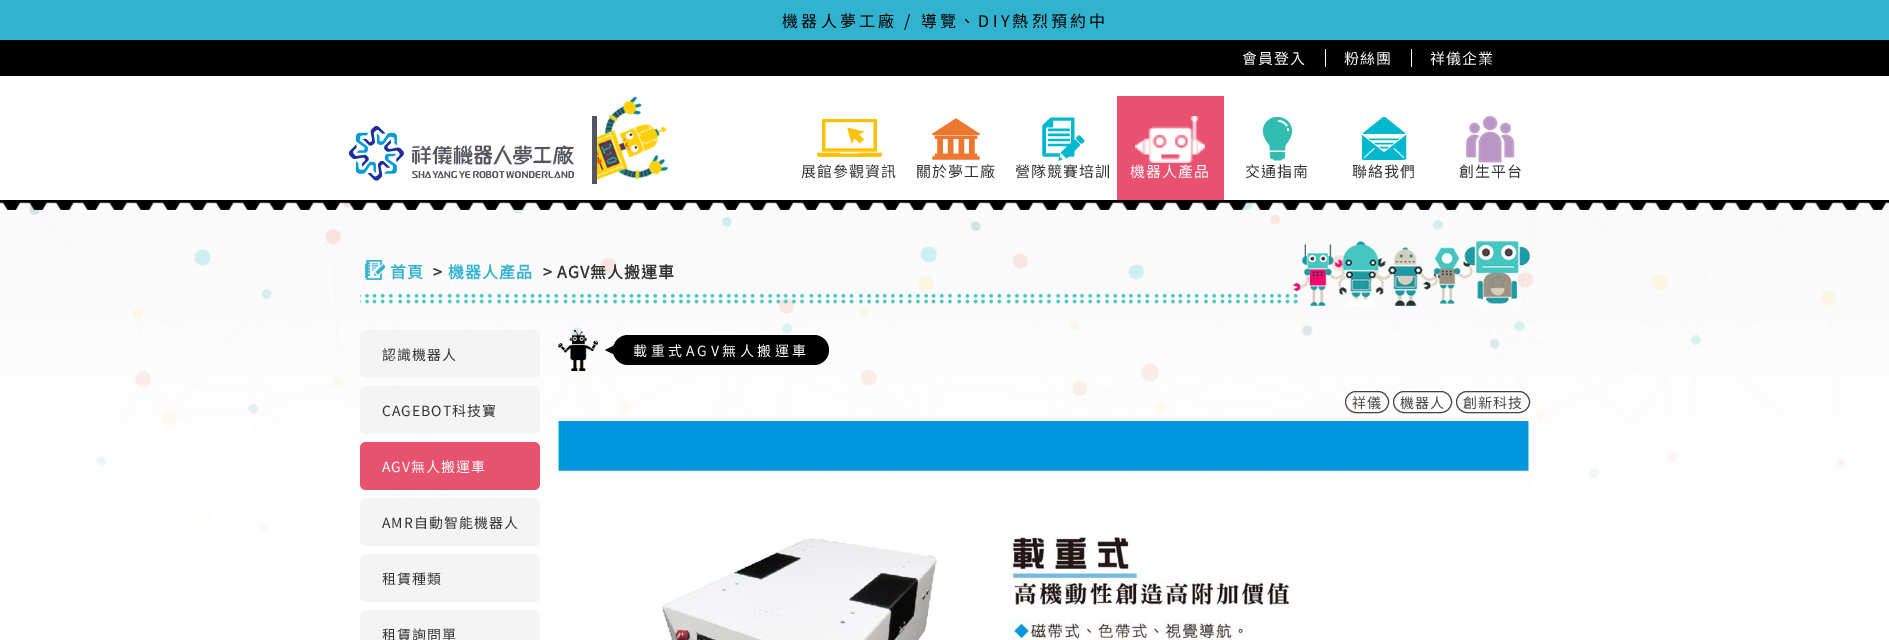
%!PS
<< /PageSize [1889 640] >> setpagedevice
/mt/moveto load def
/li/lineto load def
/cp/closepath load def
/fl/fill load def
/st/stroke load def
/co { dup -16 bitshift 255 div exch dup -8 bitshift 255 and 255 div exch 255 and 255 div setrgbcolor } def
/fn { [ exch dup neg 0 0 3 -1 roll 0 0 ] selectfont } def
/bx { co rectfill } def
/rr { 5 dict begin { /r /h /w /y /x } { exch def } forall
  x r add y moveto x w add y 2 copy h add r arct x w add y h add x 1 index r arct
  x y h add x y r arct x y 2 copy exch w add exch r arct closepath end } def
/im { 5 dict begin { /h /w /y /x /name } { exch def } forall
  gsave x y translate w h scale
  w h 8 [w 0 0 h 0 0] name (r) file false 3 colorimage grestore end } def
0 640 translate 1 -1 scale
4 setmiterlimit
0 0 1889 640 16#FFFFFF bx
(media/11.raw) 0 202 1889 333 im
(media/1.raw) 0 200 1889 10 im
0 0 1889 40 16#31B2CF bx
0 40 1889 36 16#000000 bx
1325 49 1 18 16#FFFFFF bx
1411 49 1 18 16#FFFFFF bx
(media/2.raw) 349 126 225 55 im
(media/3.raw) 592 96 77 88 im
(media/4.raw) 817 119 65 38 im
(media/5.raw) 932 118 48 42 im
(media/6.raw) 1042 117 43 44 im
1117 96 107 104 16#E85170 bx
(media/7.raw) 1135 116 70 47 im
(media/8.raw) 1263 117 29 44 im
(media/9.raw) 1362 117 45 43 im
(media/10.raw) 1465 115 50 48 im
(media/12.raw) 360 241 1170 65 im
(media/13.raw) 365 260 20 20 im
16#F4F4F4 co
360 330 180 48 6 rr fl
360 386 180 48 6 rr fl
16#E7526F co
360 442 180 48 6 rr fl
16#F4F4F4 co
360 498 180 48 6 rr fl
360 554 180 48 6 rr fl
360 610 180 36 6 rr fl
(media/14.raw) 558 330 40 41 im
16#000000 co
613 335 216 30 15 rr fl
615 345 mt 615 355 li 605 350 li cp fl
16#444444 co
1345.5 391.5 43 21 10.5 rr st
1393.5 391.5 58 21 10.5 rr st
1456.5 391.5 73 21 10.5 rr st
(media/15.raw) 558 421 971 219 im
/NotoSansTC-Regular 16 fn
16#000000 co
782 27 mt 3.25 0 (機器人夢工廠 / 導覽、DIY熱烈預約中) ashow
/NotoSansTC-Regular 15 fn
16#FFFFFF co
1242 64 mt 1 0 (會員登入) ashow
1344 64 mt 1 0 (粉絲團) ashow
1430 64 mt 1 0 (祥儀企業) ashow
16#333333 co
801 177 mt 1 0 (展館參觀資訊) ashow
916 177 mt 1 0 (關於夢工廠) ashow
1015 177 mt 1 0 (營隊競賽培訓) ashow
16#FFFFFF co
1130 177 mt 1 0 (機器人產品) ashow
16#333333 co
1245 177 mt 1 0 (交通指南) ashow
1352 177 mt 1 0 (聯絡我們) ashow
1459 177 mt 1 0 (創生平台) ashow
/NotoSansTC-Bold 16 fn
16#31B2CF co
390 278 mt 1 0 (首頁) ashow
16#333333 co
433 278 mt 1 0 (>) ashow
16#31B2CF co
448 278 mt 1 0 (機器人產品) ashow
16#333333 co
543 278 mt 1 0 (>) ashow
557 278 mt 1 0 (AGV無人搬運車) ashow
/NotoSansTC-Regular 14 fn
382 360 mt 1 0 (認識機器人) ashow
382 416 mt 1 0 (CAGEBOT科技寶) ashow
16#FFFFFF co
382 472 mt 1 0 (AGV無人搬運車) ashow
16#333333 co
382 528 mt 1 0 (AMR自動智能機器人) ashow
382 584 mt 1 0 (租賃種類) ashow
382 640 mt 1 0 (租賃詢問單) ashow
16#FFFFFF co
633 356 mt 3.5 0 (載重式AGV無人搬運車) ashow
16#444444 co
1352 408 mt 1 0 (祥儀) ashow
1400 408 mt 1 0 (機器人) ashow
1463 408 mt 1 0 (創新科技) ashow
showpage
